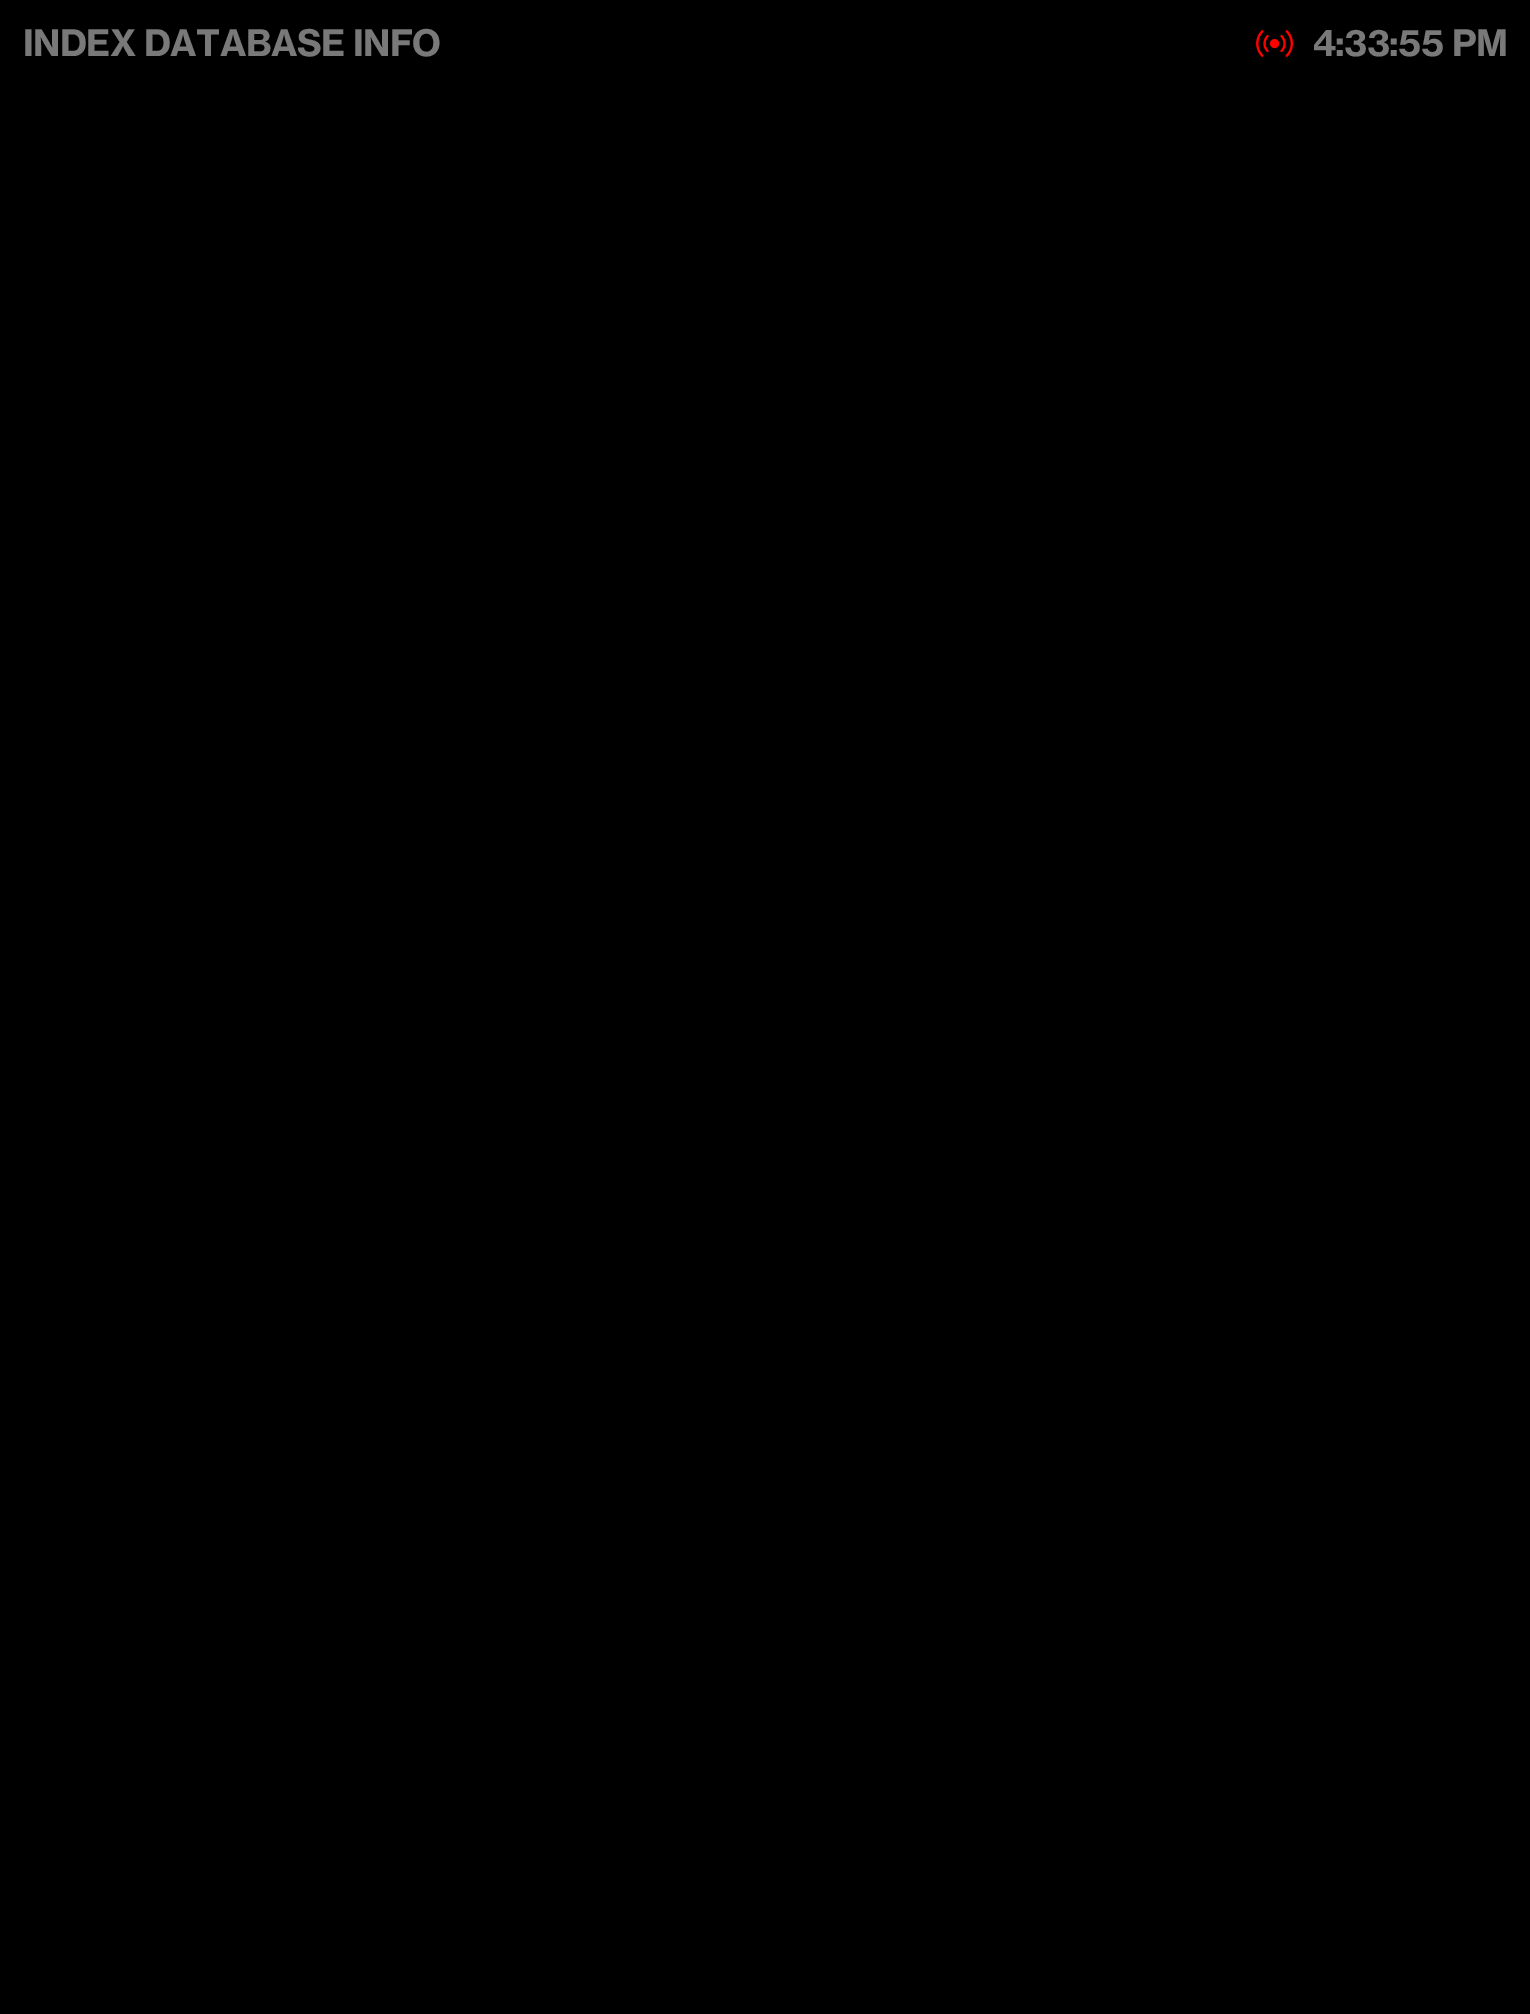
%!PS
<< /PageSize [1530 2014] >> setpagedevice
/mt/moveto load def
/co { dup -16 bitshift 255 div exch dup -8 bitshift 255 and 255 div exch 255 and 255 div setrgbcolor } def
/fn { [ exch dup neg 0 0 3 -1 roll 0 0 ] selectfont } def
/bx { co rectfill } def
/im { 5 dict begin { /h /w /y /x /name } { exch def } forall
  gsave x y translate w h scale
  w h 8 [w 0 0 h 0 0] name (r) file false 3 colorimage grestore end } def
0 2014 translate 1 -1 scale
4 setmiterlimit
0 0 1530 2014 16#000000 bx
(media/1.raw) 1256 30 37 27 im
(media/2.raw) 1454 29 52 27 im
/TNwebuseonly-Bold 36 fn
16#797979 co
23 56 mt -.5 0 (INDEX DATABASE INFO) ashow
1312 56 mt -.5 0 (4:) ashow
/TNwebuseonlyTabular-Bold 36 fn
1344 56 mt -.5 0 (33) ashow
/TNwebuseonly-Bold 36 fn
1389 56 mt -.5 0 (:) ashow
/TNwebuseonlyTabular-Bold 36 fn
1398 56 mt -.5 0 (55) ashow
showpage
